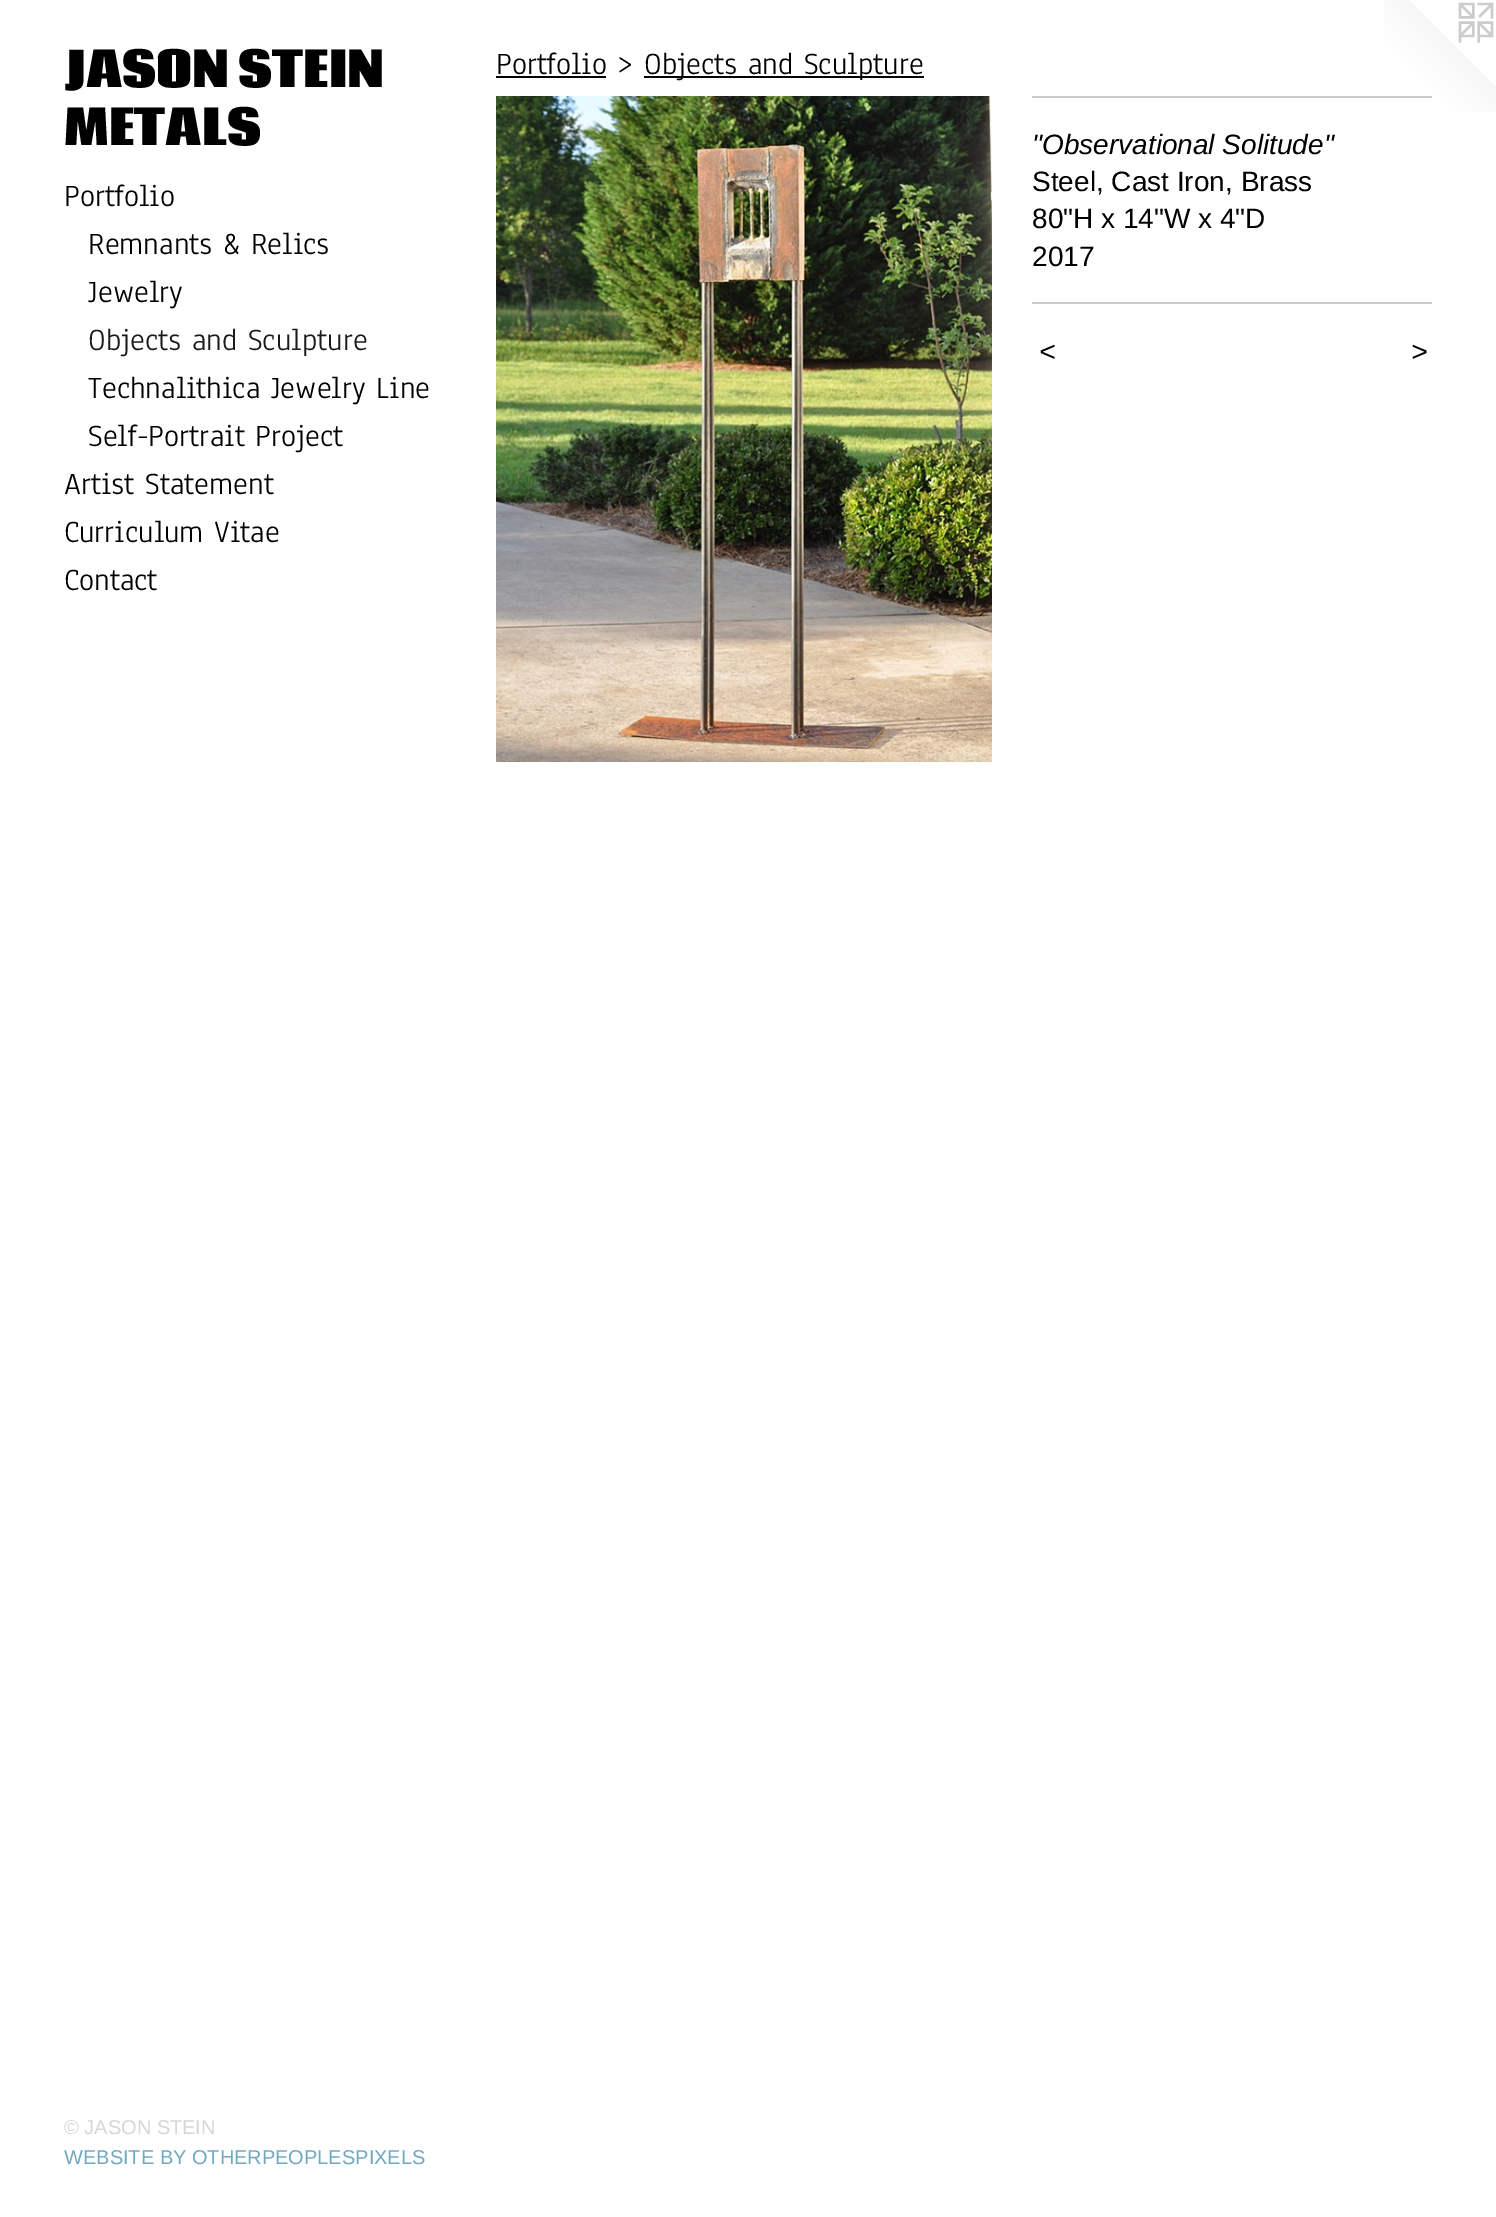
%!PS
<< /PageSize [1496 2217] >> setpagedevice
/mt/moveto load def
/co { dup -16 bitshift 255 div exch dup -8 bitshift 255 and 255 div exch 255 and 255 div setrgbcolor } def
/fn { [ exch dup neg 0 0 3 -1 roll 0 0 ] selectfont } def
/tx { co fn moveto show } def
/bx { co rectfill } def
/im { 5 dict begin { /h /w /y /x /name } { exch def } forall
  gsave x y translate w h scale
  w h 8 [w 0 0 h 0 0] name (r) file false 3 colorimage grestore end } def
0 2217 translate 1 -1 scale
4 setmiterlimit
0 0 1496 2217 16#FFFFFF bx
496 76 110 2 16#000000 bx
644 76 280 2 16#000000 bx
(media/1.raw) 496 96 496 666 im
(media/2.raw) 1384 0 112 112 im
1032 96 400 2 16#CCCCCC bx
1032 302 400 2 16#CCCCCC bx
(JASON STEIN) 64 87 /Coda-ExtraBold 48 16#000000 tx
(METALS) 64 145 /Coda-ExtraBold 48 16#000000 tx
(Portfolio) 64 206 /Anaheim-Regular 32 16#000000 tx
(Remnants & Relics) 88 254 /Anaheim-Regular 32 16#000000 tx
(Jewelry) 88 302 /Anaheim-Regular 32 16#000000 tx
(Objects and Sculpture) 88 350 /Anaheim-Regular 32 16#1A1A1A tx
(Technalithica Jewelry Line) 88 398 /Anaheim-Regular 32 16#000000 tx
(Self-Portrait Project) 88 446 /Anaheim-Regular 32 16#000000 tx
(Artist Statement) 64 494 /Anaheim-Regular 32 16#000000 tx
(Curriculum Vitae) 64 542 /Anaheim-Regular 32 16#000000 tx
(Contact) 64 590 /Anaheim-Regular 32 16#000000 tx
(© JASON STEIN) 64 2134 /LiberationSans-Regular 20 16#D6D6D6 tx
(WEBSITE BY OTHERPEOPLESPIXELS) 64 2164 /LiberationSans-Regular 20 16#70A8C0 tx
(Portfolio >) 496 74 /Anaheim-Regular 32 16#000000 tx
(Objects and Sculpture) 644 74 /Anaheim-Regular 32 16#000000 tx
("Observational Solitude") 1032 154 /LiberationSans-Italic 28 16#000000 tx
(Steel, Cast Iron, Brass) 1032 191 /LiberationSans-Regular 28 16#000000 tx
(80"H x 14"W x 4"D) 1032 228 /LiberationSans-Regular 28 16#000000 tx
(2017) 1032 266 /LiberationSans-Regular 28 16#000000 tx
/LiberationSans-Italic 28 fn
1039 361 mt 2 0 (<) ashow
1411 361 mt 2 0 (>) ashow
showpage
